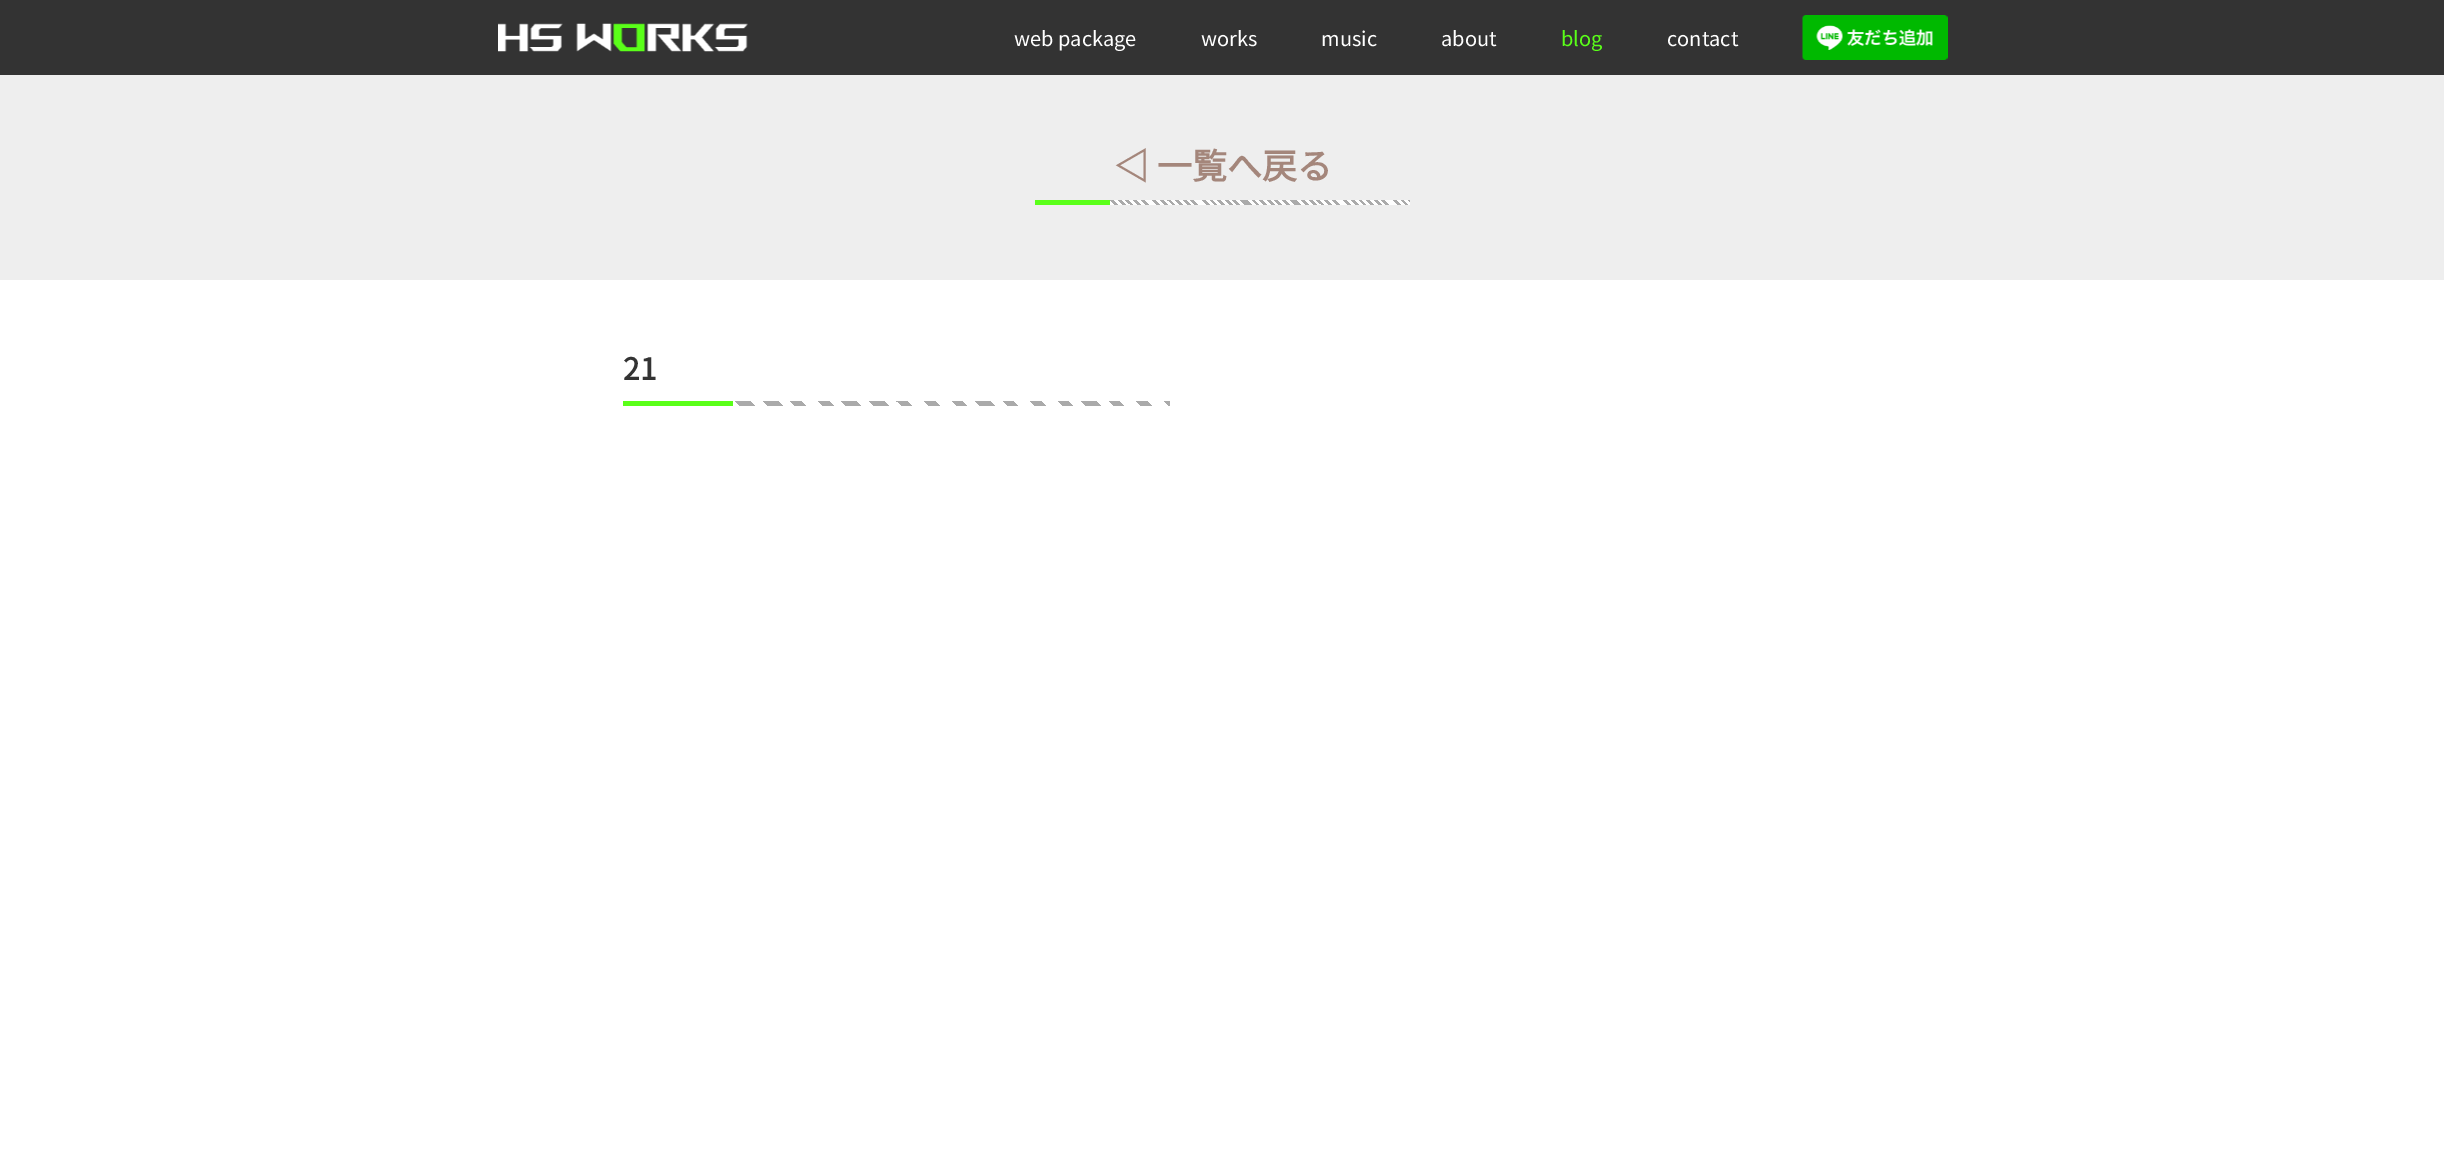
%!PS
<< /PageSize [2444 1151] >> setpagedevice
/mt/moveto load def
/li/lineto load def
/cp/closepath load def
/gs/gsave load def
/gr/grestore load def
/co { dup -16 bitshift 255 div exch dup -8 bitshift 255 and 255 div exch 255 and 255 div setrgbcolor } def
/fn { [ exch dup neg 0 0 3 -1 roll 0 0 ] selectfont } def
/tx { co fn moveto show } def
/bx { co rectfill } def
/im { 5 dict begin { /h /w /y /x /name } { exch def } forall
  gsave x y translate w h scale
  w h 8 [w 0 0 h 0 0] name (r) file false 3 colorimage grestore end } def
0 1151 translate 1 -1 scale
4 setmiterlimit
0 0 2444 1151 16#FFFFFF bx
0 0 2444 75 16#333333 bx
(media/1.raw) 498 23 250 29 im
(media/2.raw) 1802 15 146 45 im
0 75 2444 205 16#EEEEEE bx
1035 200 75 5 16#5AFF19 bx
gs 1110 200 mt 1410 200 li 1410 205 li 1110 205 li cp clip newpath
<< /ShadingType 2 /ColorSpace /DeviceRGB /Coords [1128 298 1318 107] /Extend [true true] /Function << /FunctionType 3 /Domain [0 1] /Functions [<< /FunctionType 2 /Domain [0 1] /C0 [1 1 1] /C1 [1 1 1] /N 1 >> << /FunctionType 2 /Domain [0 1] /C0 [.667 .667 .667] /C1 [.667 .667 .667] /N 1 >> << /FunctionType 2 /Domain [0 1] /C0 [1 1 1] /C1 [1 1 1] /N 1 >> << /FunctionType 2 /Domain [0 1] /C0 [.667 .667 .667] /C1 [.667 .667 .667] /N 1 >> << /FunctionType 2 /Domain [0 1] /C0 [1 1 1] /C1 [1 1 1] /N 1 >> << /FunctionType 2 /Domain [0 1] /C0 [.667 .667 .667] /C1 [.667 .667 .667] /N 1 >> << /FunctionType 2 /Domain [0 1] /C0 [.667 .667 .667] /C1 [.667 .667 .667] /N 1 >> << /FunctionType 2 /Domain [0 1] /C0 [1 1 1] /C1 [1 1 1] /N 1 >> << /FunctionType 2 /Domain [0 1] /C0 [.667 .667 .667] /C1 [.667 .667 .667] /N 1 >> << /FunctionType 2 /Domain [0 1] /C0 [1 1 1] /C1 [1 1 1] /N 1 >> << /FunctionType 2 /Domain [0 1] /C0 [.667 .667 .667] /C1 [.667 .667 .667] /N 1 >> << /FunctionType 2 /Domain [0 1] /C0 [1 1 1] /C1 [1 1 1] /N 1 >> << /FunctionType 2 /Domain [0 1] /C0 [.667 .667 .667] /C1 [.667 .667 .667] /N 1 >> << /FunctionType 2 /Domain [0 1] /C0 [1 1 1] /C1 [1 1 1] /N 1 >> << /FunctionType 2 /Domain [0 1] /C0 [.667 .667 .667] /C1 [.667 .667 .667] /N 1 >> << /FunctionType 2 /Domain [0 1] /C0 [1 1 1] /C1 [1 1 1] /N 1 >> << /FunctionType 2 /Domain [0 1] /C0 [.667 .667 .667] /C1 [.667 .667 .667] /N 1 >> << /FunctionType 2 /Domain [0 1] /C0 [1 1 1] /C1 [1 1 1] /N 1 >> << /FunctionType 2 /Domain [0 1] /C0 [.667 .667 .667] /C1 [.667 .667 .667] /N 1 >> << /FunctionType 2 /Domain [0 1] /C0 [.667 .667 .667] /C1 [.667 .667 .667] /N 1 >> << /FunctionType 2 /Domain [0 1] /C0 [1 1 1] /C1 [1 1 1] /N 1 >> << /FunctionType 2 /Domain [0 1] /C0 [.667 .667 .667] /C1 [.667 .667 .667] /N 1 >> << /FunctionType 2 /Domain [0 1] /C0 [1 1 1] /C1 [1 1 1] /N 1 >> << /FunctionType 2 /Domain [0 1] /C0 [.667 .667 .667] /C1 [.667 .667 .667] /N 1 >> << /FunctionType 2 /Domain [0 1] /C0 [1 1 1] /C1 [1 1 1] /N 1 >> << /FunctionType 2 /Domain [0 1] /C0 [.667 .667 .667] /C1 [.667 .667 .667] /N 1 >> << /FunctionType 2 /Domain [0 1] /C0 [1 1 1] /C1 [1 1 1] /N 1 >> << /FunctionType 2 /Domain [0 1] /C0 [.667 .667 .667] /C1 [.667 .667 .667] /N 1 >> << /FunctionType 2 /Domain [0 1] /C0 [1 1 1] /C1 [1 1 1] /N 1 >> << /FunctionType 2 /Domain [0 1] /C0 [.667 .667 .667] /C1 [.667 .667 .667] /N 1 >> << /FunctionType 2 /Domain [0 1] /C0 [1 1 1] /C1 [1 1 1] /N 1 >> << /FunctionType 2 /Domain [0 1] /C0 [1 1 1] /C1 [1 1 1] /N 1 >> << /FunctionType 2 /Domain [0 1] /C0 [.667 .667 .667] /C1 [.667 .667 .667] /N 1 >> << /FunctionType 2 /Domain [0 1] /C0 [1 1 1] /C1 [1 1 1] /N 1 >> << /FunctionType 2 /Domain [0 1] /C0 [.667 .667 .667] /C1 [.667 .667 .667] /N 1 >> << /FunctionType 2 /Domain [0 1] /C0 [1 1 1] /C1 [1 1 1] /N 1 >> << /FunctionType 2 /Domain [0 1] /C0 [.667 .667 .667] /C1 [.667 .667 .667] /N 1 >> << /FunctionType 2 /Domain [0 1] /C0 [1 1 1] /C1 [1 1 1] /N 1 >> << /FunctionType 2 /Domain [0 1] /C0 [.667 .667 .667] /C1 [.667 .667 .667] /N 1 >> << /FunctionType 2 /Domain [0 1] /C0 [1 1 1] /C1 [1 1 1] /N 1 >> << /FunctionType 2 /Domain [0 1] /C0 [.667 .667 .667] /C1 [.667 .667 .667] /N 1 >> << /FunctionType 2 /Domain [0 1] /C0 [1 1 1] /C1 [1 1 1] /N 1 >> << /FunctionType 2 /Domain [0 1] /C0 [.667 .667 .667] /C1 [.667 .667 .667] /N 1 >> << /FunctionType 2 /Domain [0 1] /C0 [1 1 1] /C1 [1 1 1] /N 1 >> << /FunctionType 2 /Domain [0 1] /C0 [1 1 1] /C1 [1 1 1] /N 1 >> << /FunctionType 2 /Domain [0 1] /C0 [.667 .667 .667] /C1 [.667 .667 .667] /N 1 >> << /FunctionType 2 /Domain [0 1] /C0 [1 1 1] /C1 [1 1 1] /N 1 >> << /FunctionType 2 /Domain [0 1] /C0 [.667 .667 .667] /C1 [.667 .667 .667] /N 1 >> << /FunctionType 2 /Domain [0 1] /C0 [1 1 1] /C1 [1 1 1] /N 1 >> << /FunctionType 2 /Domain [0 1] /C0 [.667 .667 .667] /C1 [.667 .667 .667] /N 1 >> << /FunctionType 2 /Domain [0 1] /C0 [1 1 1] /C1 [1 1 1] /N 1 >> << /FunctionType 2 /Domain [0 1] /C0 [.667 .667 .667] /C1 [.667 .667 .667] /N 1 >> << /FunctionType 2 /Domain [0 1] /C0 [1 1 1] /C1 [1 1 1] /N 1 >> << /FunctionType 2 /Domain [0 1] /C0 [.667 .667 .667] /C1 [.667 .667 .667] /N 1 >> << /FunctionType 2 /Domain [0 1] /C0 [1 1 1] /C1 [1 1 1] /N 1 >> << /FunctionType 2 /Domain [0 1] /C0 [.667 .667 .667] /C1 [.667 .667 .667] /N 1 >> << /FunctionType 2 /Domain [0 1] /C0 [.667 .667 .667] /C1 [.667 .667 .667] /N 1 >> << /FunctionType 2 /Domain [0 1] /C0 [1 1 1] /C1 [1 1 1] /N 1 >> << /FunctionType 2 /Domain [0 1] /C0 [.667 .667 .667] /C1 [.667 .667 .667] /N 1 >> << /FunctionType 2 /Domain [0 1] /C0 [1 1 1] /C1 [1 1 1] /N 1 >> << /FunctionType 2 /Domain [0 1] /C0 [.667 .667 .667] /C1 [.667 .667 .667] /N 1 >> << /FunctionType 2 /Domain [0 1] /C0 [1 1 1] /C1 [1 1 1] /N 1 >> << /FunctionType 2 /Domain [0 1] /C0 [.667 .667 .667] /C1 [.667 .667 .667] /N 1 >> << /FunctionType 2 /Domain [0 1] /C0 [1 1 1] /C1 [1 1 1] /N 1 >> << /FunctionType 2 /Domain [0 1] /C0 [.667 .667 .667] /C1 [.667 .667 .667] /N 1 >> << /FunctionType 2 /Domain [0 1] /C0 [1 1 1] /C1 [1 1 1] /N 1 >> << /FunctionType 2 /Domain [0 1] /C0 [.667 .667 .667] /C1 [.667 .667 .667] /N 1 >> << /FunctionType 2 /Domain [0 1] /C0 [1 1 1] /C1 [1 1 1] /N 1 >> << /FunctionType 2 /Domain [0 1] /C0 [.667 .667 .667] /C1 [.667 .667 .667] /N 1 >> << /FunctionType 2 /Domain [0 1] /C0 [.667 .667 .667] /C1 [.667 .667 .667] /N 1 >> << /FunctionType 2 /Domain [0 1] /C0 [1 1 1] /C1 [1 1 1] /N 1 >> << /FunctionType 2 /Domain [0 1] /C0 [.667 .667 .667] /C1 [.667 .667 .667] /N 1 >> << /FunctionType 2 /Domain [0 1] /C0 [1 1 1] /C1 [1 1 1] /N 1 >> << /FunctionType 2 /Domain [0 1] /C0 [.667 .667 .667] /C1 [.667 .667 .667] /N 1 >> << /FunctionType 2 /Domain [0 1] /C0 [1 1 1] /C1 [1 1 1] /N 1 >> << /FunctionType 2 /Domain [0 1] /C0 [.667 .667 .667] /C1 [.667 .667 .667] /N 1 >> << /FunctionType 2 /Domain [0 1] /C0 [1 1 1] /C1 [1 1 1] /N 1 >> << /FunctionType 2 /Domain [0 1] /C0 [.667 .667 .667] /C1 [.667 .667 .667] /N 1 >> << /FunctionType 2 /Domain [0 1] /C0 [1 1 1] /C1 [1 1 1] /N 1 >> << /FunctionType 2 /Domain [0 1] /C0 [.667 .667 .667] /C1 [.667 .667 .667] /N 1 >> << /FunctionType 2 /Domain [0 1] /C0 [1 1 1] /C1 [1 1 1] /N 1 >> << /FunctionType 2 /Domain [0 1] /C0 [1 1 1] /C1 [1 1 1] /N 1 >> << /FunctionType 2 /Domain [0 1] /C0 [.667 .667 .667] /C1 [.667 .667 .667] /N 1 >> << /FunctionType 2 /Domain [0 1] /C0 [1 1 1] /C1 [1 1 1] /N 1 >> << /FunctionType 2 /Domain [0 1] /C0 [.667 .667 .667] /C1 [.667 .667 .667] /N 1 >> << /FunctionType 2 /Domain [0 1] /C0 [1 1 1] /C1 [1 1 1] /N 1 >> << /FunctionType 2 /Domain [0 1] /C0 [.667 .667 .667] /C1 [.667 .667 .667] /N 1 >> << /FunctionType 2 /Domain [0 1] /C0 [1 1 1] /C1 [1 1 1] /N 1 >> << /FunctionType 2 /Domain [0 1] /C0 [.667 .667 .667] /C1 [.667 .667 .667] /N 1 >> << /FunctionType 2 /Domain [0 1] /C0 [1 1 1] /C1 [1 1 1] /N 1 >> << /FunctionType 2 /Domain [0 1] /C0 [.667 .667 .667] /C1 [.667 .667 .667] /N 1 >> << /FunctionType 2 /Domain [0 1] /C0 [1 1 1] /C1 [1 1 1] /N 1 >> << /FunctionType 2 /Domain [0 1] /C0 [.667 .667 .667] /C1 [.667 .667 .667] /N 1 >> << /FunctionType 2 /Domain [0 1] /C0 [1 1 1] /C1 [1 1 1] /N 1 >> << /FunctionType 2 /Domain [0 1] /C0 [1 1 1] /C1 [1 1 1] /N 1 >> << /FunctionType 2 /Domain [0 1] /C0 [.667 .667 .667] /C1 [.667 .667 .667] /N 1 >> << /FunctionType 2 /Domain [0 1] /C0 [1 1 1] /C1 [1 1 1] /N 1 >> << /FunctionType 2 /Domain [0 1] /C0 [.667 .667 .667] /C1 [.667 .667 .667] /N 1 >> << /FunctionType 2 /Domain [0 1] /C0 [1 1 1] /C1 [1 1 1] /N 1 >> << /FunctionType 2 /Domain [0 1] /C0 [.667 .667 .667] /C1 [.667 .667 .667] /N 1 >>] /Bounds [.01 .02 .03 .04 .05 .06 .07 .08 .09 .1 .11 .12 .13 .14 .15 .16 .17 .18 .19 .2 .21 .22 .23 .24 .25 .26 .27 .28 .29 .3 .31 .32 .33 .34 .35 .36 .37 .38 .39 .4 .41 .42 .43 .44 .45 .46 .47 .48 .49 .5 .51 .52 .53 .54 .55 .56 .57 .58 .59 .6 .61 .62 .63 .64 .65 .66 .67 .68 .69 .7 .71 .72 .73 .74 .75 .76 .77 .78 .79 .8 .81 .82 .83 .84 .85 .86 .87 .88 .89 .9 .91 .92 .93 .94 .95 .96 .97 .98 .99] /Encode [0 1 0 1 0 1 0 1 0 1 0 1 0 1 0 1 0 1 0 1 0 1 0 1 0 1 0 1 0 1 0 1 0 1 0 1 0 1 0 1 0 1 0 1 0 1 0 1 0 1 0 1 0 1 0 1 0 1 0 1 0 1 0 1 0 1 0 1 0 1 0 1 0 1 0 1 0 1 0 1 0 1 0 1 0 1 0 1 0 1 0 1 0 1 0 1 0 1 0 1 0 1 0 1 0 1 0 1 0 1 0 1 0 1 0 1 0 1 0 1 0 1 0 1 0 1 0 1 0 1 0 1 0 1 0 1 0 1 0 1 0 1 0 1 0 1 0 1 0 1 0 1 0 1 0 1 0 1 0 1 0 1 0 1 0 1 0 1 0 1 0 1 0 1 0 1 0 1 0 1 0 1 0 1 0 1 0 1 0 1 0 1 0 1 0 1 0 1 0 1] >> >> shfill gr
623 401 110 5 16#5AFF19 bx
gs 733 401 mt 1170 401 li 1170 406 li 733 406 li cp clip newpath
<< /ShadingType 2 /ColorSpace /DeviceRGB /Coords [758 542 1037 263] /Extend [true true] /Function << /FunctionType 3 /Domain [0 1] /Functions [<< /FunctionType 2 /Domain [0 1] /C0 [1 1 1] /C1 [1 1 1] /N 1 >> << /FunctionType 2 /Domain [0 1] /C0 [1 1 1] /C1 [1 1 1] /N 1 >> << /FunctionType 2 /Domain [0 1] /C0 [.667 .667 .667] /C1 [.667 .667 .667] /N 1 >> << /FunctionType 2 /Domain [0 1] /C0 [.667 .667 .667] /C1 [.667 .667 .667] /N 1 >> << /FunctionType 2 /Domain [0 1] /C0 [.667 .667 .667] /C1 [.667 .667 .667] /N 1 >> << /FunctionType 2 /Domain [0 1] /C0 [1 1 1] /C1 [1 1 1] /N 1 >> << /FunctionType 2 /Domain [0 1] /C0 [1 1 1] /C1 [1 1 1] /N 1 >> << /FunctionType 2 /Domain [0 1] /C0 [.667 .667 .667] /C1 [.667 .667 .667] /N 1 >> << /FunctionType 2 /Domain [0 1] /C0 [.667 .667 .667] /C1 [.667 .667 .667] /N 1 >> << /FunctionType 2 /Domain [0 1] /C0 [.667 .667 .667] /C1 [.667 .667 .667] /N 1 >> << /FunctionType 2 /Domain [0 1] /C0 [1 1 1] /C1 [1 1 1] /N 1 >> << /FunctionType 2 /Domain [0 1] /C0 [1 1 1] /C1 [1 1 1] /N 1 >> << /FunctionType 2 /Domain [0 1] /C0 [.667 .667 .667] /C1 [.667 .667 .667] /N 1 >> << /FunctionType 2 /Domain [0 1] /C0 [.667 .667 .667] /C1 [.667 .667 .667] /N 1 >> << /FunctionType 2 /Domain [0 1] /C0 [1 1 1] /C1 [1 1 1] /N 1 >> << /FunctionType 2 /Domain [0 1] /C0 [1 1 1] /C1 [1 1 1] /N 1 >> << /FunctionType 2 /Domain [0 1] /C0 [1 1 1] /C1 [1 1 1] /N 1 >> << /FunctionType 2 /Domain [0 1] /C0 [.667 .667 .667] /C1 [.667 .667 .667] /N 1 >> << /FunctionType 2 /Domain [0 1] /C0 [.667 .667 .667] /C1 [.667 .667 .667] /N 1 >> << /FunctionType 2 /Domain [0 1] /C0 [1 1 1] /C1 [1 1 1] /N 1 >> << /FunctionType 2 /Domain [0 1] /C0 [1 1 1] /C1 [1 1 1] /N 1 >> << /FunctionType 2 /Domain [0 1] /C0 [.667 .667 .667] /C1 [.667 .667 .667] /N 1 >> << /FunctionType 2 /Domain [0 1] /C0 [.667 .667 .667] /C1 [.667 .667 .667] /N 1 >> << /FunctionType 2 /Domain [0 1] /C0 [.667 .667 .667] /C1 [.667 .667 .667] /N 1 >> << /FunctionType 2 /Domain [0 1] /C0 [1 1 1] /C1 [1 1 1] /N 1 >> << /FunctionType 2 /Domain [0 1] /C0 [1 1 1] /C1 [1 1 1] /N 1 >> << /FunctionType 2 /Domain [0 1] /C0 [.667 .667 .667] /C1 [.667 .667 .667] /N 1 >> << /FunctionType 2 /Domain [0 1] /C0 [.667 .667 .667] /C1 [.667 .667 .667] /N 1 >> << /FunctionType 2 /Domain [0 1] /C0 [.667 .667 .667] /C1 [.667 .667 .667] /N 1 >> << /FunctionType 2 /Domain [0 1] /C0 [1 1 1] /C1 [1 1 1] /N 1 >> << /FunctionType 2 /Domain [0 1] /C0 [1 1 1] /C1 [1 1 1] /N 1 >> << /FunctionType 2 /Domain [0 1] /C0 [.667 .667 .667] /C1 [.667 .667 .667] /N 1 >> << /FunctionType 2 /Domain [0 1] /C0 [.667 .667 .667] /C1 [.667 .667 .667] /N 1 >> << /FunctionType 2 /Domain [0 1] /C0 [1 1 1] /C1 [1 1 1] /N 1 >> << /FunctionType 2 /Domain [0 1] /C0 [1 1 1] /C1 [1 1 1] /N 1 >> << /FunctionType 2 /Domain [0 1] /C0 [1 1 1] /C1 [1 1 1] /N 1 >> << /FunctionType 2 /Domain [0 1] /C0 [.667 .667 .667] /C1 [.667 .667 .667] /N 1 >> << /FunctionType 2 /Domain [0 1] /C0 [.667 .667 .667] /C1 [.667 .667 .667] /N 1 >> << /FunctionType 2 /Domain [0 1] /C0 [1 1 1] /C1 [1 1 1] /N 1 >> << /FunctionType 2 /Domain [0 1] /C0 [1 1 1] /C1 [1 1 1] /N 1 >> << /FunctionType 2 /Domain [0 1] /C0 [.667 .667 .667] /C1 [.667 .667 .667] /N 1 >> << /FunctionType 2 /Domain [0 1] /C0 [.667 .667 .667] /C1 [.667 .667 .667] /N 1 >> << /FunctionType 2 /Domain [0 1] /C0 [.667 .667 .667] /C1 [.667 .667 .667] /N 1 >> << /FunctionType 2 /Domain [0 1] /C0 [1 1 1] /C1 [1 1 1] /N 1 >> << /FunctionType 2 /Domain [0 1] /C0 [1 1 1] /C1 [1 1 1] /N 1 >> << /FunctionType 2 /Domain [0 1] /C0 [.667 .667 .667] /C1 [.667 .667 .667] /N 1 >> << /FunctionType 2 /Domain [0 1] /C0 [.667 .667 .667] /C1 [.667 .667 .667] /N 1 >> << /FunctionType 2 /Domain [0 1] /C0 [.667 .667 .667] /C1 [.667 .667 .667] /N 1 >> << /FunctionType 2 /Domain [0 1] /C0 [1 1 1] /C1 [1 1 1] /N 1 >> << /FunctionType 2 /Domain [0 1] /C0 [1 1 1] /C1 [1 1 1] /N 1 >> << /FunctionType 2 /Domain [0 1] /C0 [.667 .667 .667] /C1 [.667 .667 .667] /N 1 >> << /FunctionType 2 /Domain [0 1] /C0 [.667 .667 .667] /C1 [.667 .667 .667] /N 1 >> << /FunctionType 2 /Domain [0 1] /C0 [1 1 1] /C1 [1 1 1] /N 1 >> << /FunctionType 2 /Domain [0 1] /C0 [1 1 1] /C1 [1 1 1] /N 1 >> << /FunctionType 2 /Domain [0 1] /C0 [1 1 1] /C1 [1 1 1] /N 1 >> << /FunctionType 2 /Domain [0 1] /C0 [.667 .667 .667] /C1 [.667 .667 .667] /N 1 >> << /FunctionType 2 /Domain [0 1] /C0 [.667 .667 .667] /C1 [.667 .667 .667] /N 1 >> << /FunctionType 2 /Domain [0 1] /C0 [1 1 1] /C1 [1 1 1] /N 1 >> << /FunctionType 2 /Domain [0 1] /C0 [1 1 1] /C1 [1 1 1] /N 1 >> << /FunctionType 2 /Domain [0 1] /C0 [1 1 1] /C1 [1 1 1] /N 1 >> << /FunctionType 2 /Domain [0 1] /C0 [.667 .667 .667] /C1 [.667 .667 .667] /N 1 >> << /FunctionType 2 /Domain [0 1] /C0 [.667 .667 .667] /C1 [.667 .667 .667] /N 1 >> << /FunctionType 2 /Domain [0 1] /C0 [1 1 1] /C1 [1 1 1] /N 1 >> << /FunctionType 2 /Domain [0 1] /C0 [1 1 1] /C1 [1 1 1] /N 1 >> << /FunctionType 2 /Domain [0 1] /C0 [.667 .667 .667] /C1 [.667 .667 .667] /N 1 >> << /FunctionType 2 /Domain [0 1] /C0 [.667 .667 .667] /C1 [.667 .667 .667] /N 1 >> << /FunctionType 2 /Domain [0 1] /C0 [.667 .667 .667] /C1 [.667 .667 .667] /N 1 >> << /FunctionType 2 /Domain [0 1] /C0 [1 1 1] /C1 [1 1 1] /N 1 >> << /FunctionType 2 /Domain [0 1] /C0 [1 1 1] /C1 [1 1 1] /N 1 >> << /FunctionType 2 /Domain [0 1] /C0 [.667 .667 .667] /C1 [.667 .667 .667] /N 1 >> << /FunctionType 2 /Domain [0 1] /C0 [.667 .667 .667] /C1 [.667 .667 .667] /N 1 >> << /FunctionType 2 /Domain [0 1] /C0 [1 1 1] /C1 [1 1 1] /N 1 >> << /FunctionType 2 /Domain [0 1] /C0 [1 1 1] /C1 [1 1 1] /N 1 >> << /FunctionType 2 /Domain [0 1] /C0 [1 1 1] /C1 [1 1 1] /N 1 >> << /FunctionType 2 /Domain [0 1] /C0 [.667 .667 .667] /C1 [.667 .667 .667] /N 1 >> << /FunctionType 2 /Domain [0 1] /C0 [.667 .667 .667] /C1 [.667 .667 .667] /N 1 >> << /FunctionType 2 /Domain [0 1] /C0 [1 1 1] /C1 [1 1 1] /N 1 >> << /FunctionType 2 /Domain [0 1] /C0 [1 1 1] /C1 [1 1 1] /N 1 >> << /FunctionType 2 /Domain [0 1] /C0 [1 1 1] /C1 [1 1 1] /N 1 >> << /FunctionType 2 /Domain [0 1] /C0 [.667 .667 .667] /C1 [.667 .667 .667] /N 1 >> << /FunctionType 2 /Domain [0 1] /C0 [.667 .667 .667] /C1 [.667 .667 .667] /N 1 >> << /FunctionType 2 /Domain [0 1] /C0 [1 1 1] /C1 [1 1 1] /N 1 >> << /FunctionType 2 /Domain [0 1] /C0 [1 1 1] /C1 [1 1 1] /N 1 >> << /FunctionType 2 /Domain [0 1] /C0 [.667 .667 .667] /C1 [.667 .667 .667] /N 1 >> << /FunctionType 2 /Domain [0 1] /C0 [.667 .667 .667] /C1 [.667 .667 .667] /N 1 >> << /FunctionType 2 /Domain [0 1] /C0 [.667 .667 .667] /C1 [.667 .667 .667] /N 1 >> << /FunctionType 2 /Domain [0 1] /C0 [1 1 1] /C1 [1 1 1] /N 1 >> << /FunctionType 2 /Domain [0 1] /C0 [1 1 1] /C1 [1 1 1] /N 1 >> << /FunctionType 2 /Domain [0 1] /C0 [.667 .667 .667] /C1 [.667 .667 .667] /N 1 >> << /FunctionType 2 /Domain [0 1] /C0 [.667 .667 .667] /C1 [.667 .667 .667] /N 1 >> << /FunctionType 2 /Domain [0 1] /C0 [1 1 1] /C1 [1 1 1] /N 1 >> << /FunctionType 2 /Domain [0 1] /C0 [1 1 1] /C1 [1 1 1] /N 1 >> << /FunctionType 2 /Domain [0 1] /C0 [1 1 1] /C1 [1 1 1] /N 1 >> << /FunctionType 2 /Domain [0 1] /C0 [.667 .667 .667] /C1 [.667 .667 .667] /N 1 >> << /FunctionType 2 /Domain [0 1] /C0 [.667 .667 .667] /C1 [.667 .667 .667] /N 1 >> << /FunctionType 2 /Domain [0 1] /C0 [1 1 1] /C1 [1 1 1] /N 1 >> << /FunctionType 2 /Domain [0 1] /C0 [1 1 1] /C1 [1 1 1] /N 1 >> << /FunctionType 2 /Domain [0 1] /C0 [1 1 1] /C1 [1 1 1] /N 1 >> << /FunctionType 2 /Domain [0 1] /C0 [.667 .667 .667] /C1 [.667 .667 .667] /N 1 >> << /FunctionType 2 /Domain [0 1] /C0 [.667 .667 .667] /C1 [.667 .667 .667] /N 1 >>] /Bounds [.01 .02 .03 .04 .05 .06 .07 .08 .09 .1 .11 .12 .13 .14 .15 .16 .17 .18 .19 .2 .21 .22 .23 .24 .25 .26 .27 .28 .29 .3 .31 .32 .33 .34 .35 .36 .37 .38 .39 .4 .41 .42 .43 .44 .45 .46 .47 .48 .49 .5 .51 .52 .53 .54 .55 .56 .57 .58 .59 .6 .61 .62 .63 .64 .65 .66 .67 .68 .69 .7 .71 .72 .73 .74 .75 .76 .77 .78 .79 .8 .81 .82 .83 .84 .85 .86 .87 .88 .89 .9 .91 .92 .93 .94 .95 .96 .97 .98 .99] /Encode [0 1 0 1 0 1 0 1 0 1 0 1 0 1 0 1 0 1 0 1 0 1 0 1 0 1 0 1 0 1 0 1 0 1 0 1 0 1 0 1 0 1 0 1 0 1 0 1 0 1 0 1 0 1 0 1 0 1 0 1 0 1 0 1 0 1 0 1 0 1 0 1 0 1 0 1 0 1 0 1 0 1 0 1 0 1 0 1 0 1 0 1 0 1 0 1 0 1 0 1 0 1 0 1 0 1 0 1 0 1 0 1 0 1 0 1 0 1 0 1 0 1 0 1 0 1 0 1 0 1 0 1 0 1 0 1 0 1 0 1 0 1 0 1 0 1 0 1 0 1 0 1 0 1 0 1 0 1 0 1 0 1 0 1 0 1 0 1 0 1 0 1 0 1 0 1 0 1 0 1 0 1 0 1 0 1 0 1 0 1 0 1 0 1 0 1 0 1 0 1] >> >> shfill gr
(web package) 1014 46 /NotoSansJP-Thin 20 16#FFFFFF tx
(works) 1201 46 /NotoSansJP-Thin 20 16#FFFFFF tx
(music) 1321 46 /NotoSansJP-Thin 20 16#FFFFFF tx
(about) 1441 46 /NotoSansJP-Thin 20 16#FFFFFF tx
(blog) 1561 46 /NotoSansJP-Thin 20 16#5AFF19 tx
(contact) 1667 46 /NotoSansJP-Thin 20 16#FFFFFF tx
(◁ 一覧へ戻る) 1114 179 /NotoSansJP-Bold 35 16#A4867B tx
(21) 623 380 /NotoSansJP-Bold 30 16#333333 tx
showpage
